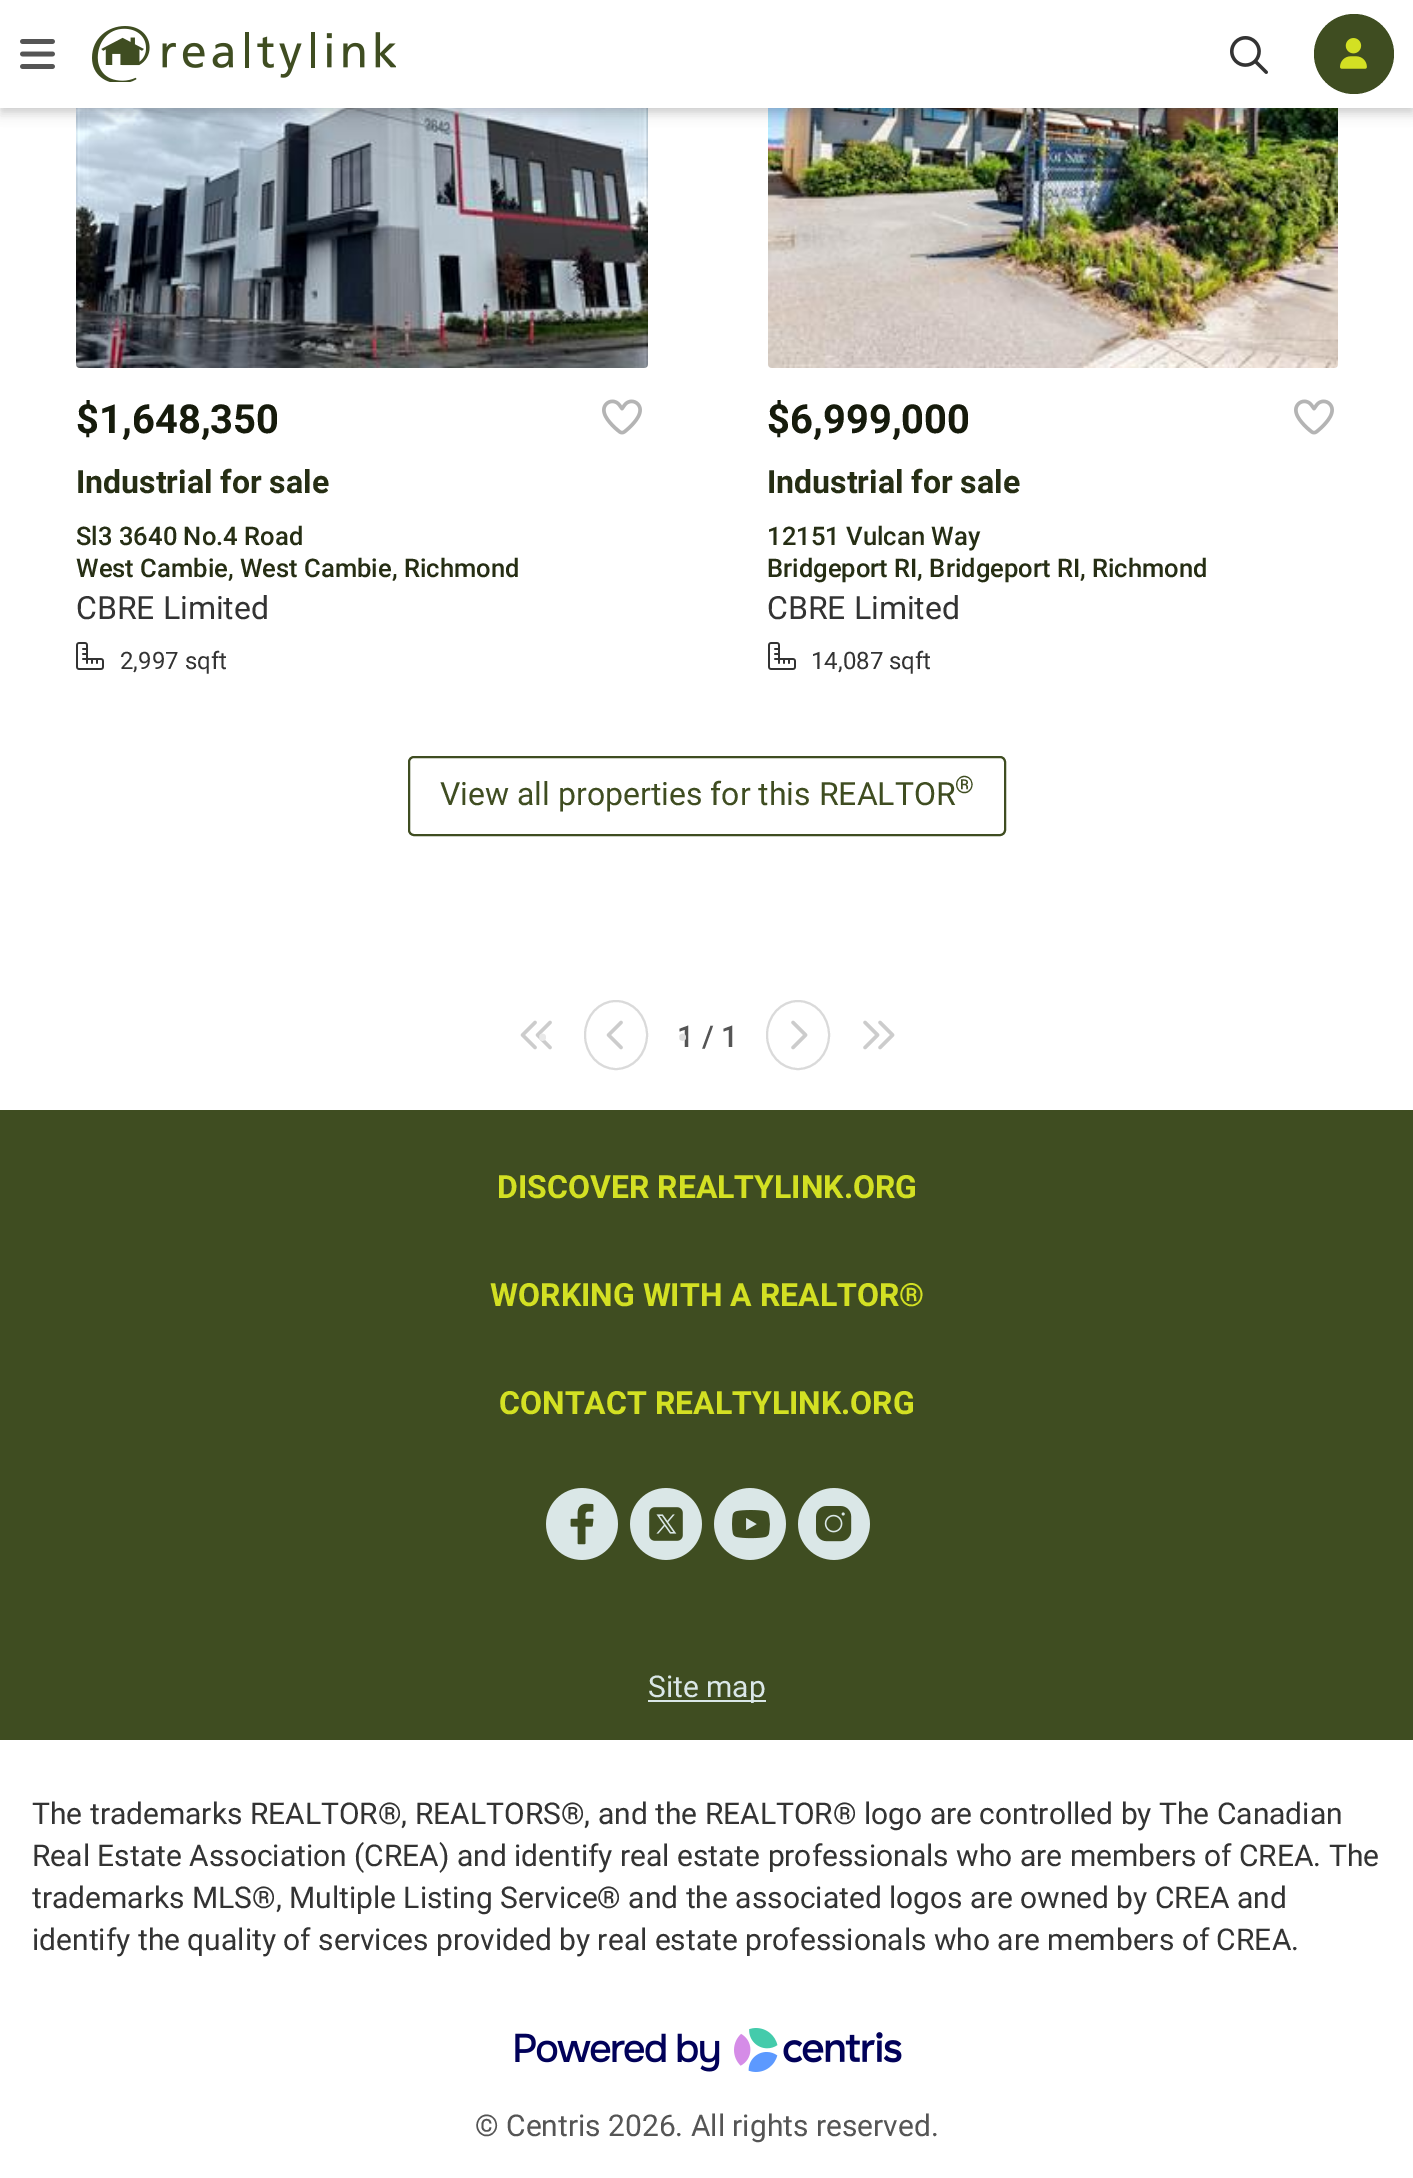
%!PS
<< /PageSize [1413 2178] /PageUsesTransparency true >> setpagedevice
/mt/moveto load def
/ct/curveto load def
/cp/closepath load def
/fl/fill load def
/st/stroke load def
/lw/setlinewidth load def
/co { dup -16 bitshift 255 div exch dup -8 bitshift 255 and 255 div exch 255 and 255 div setrgbcolor } def
/fn { [ exch dup neg 0 0 3 -1 roll 0 0 ] selectfont } def
/tx { co fn moveto show } def
/bx { co rectfill } def
/al { dup .setfillconstantalpha .setstrokeconstantalpha } def
/ci { newpath 0 360 arc closepath } def
/rr { 5 dict begin { /r /h /w /y /x } { exch def } forall
  x r add y moveto x w add y 2 copy h add r arct x w add y h add x 1 index r arct
  x y h add x y r arct x y 2 copy exch w add exch r arct closepath end } def
/sh { 12 dict begin { /a /b /q /h /w /y /x } { exch def } forall gsave /was 0 def
  9 -2 -9 { dup b mul 4 div /e exch def 1 sub .425 mul 2.718 exch exp 1 add a .99 .min exch div /now exch def
    1 1 now sub 1 was sub div sub al /was now def
    w h .min e 2 mul add 0 gt { x e sub y e sub w e 2 mul add h e 2 mul add
      q e add b .6 mul add w h .min 2 div e add .min 0 .max rr fill } if } for grestore end } def
/im { 5 dict begin { /h /w /y /x /name } { exch def } forall
  gsave x y translate w h scale
  w h 8 [w 0 0 h 0 0] name (r) file false 3 colorimage grestore end } def
0 .pushpdf14devicefilter
0 2178 translate 1 -1 scale
4 setmiterlimit
0 0 1413 2178 16#FFFFFF bx
(media/5.raw) 76 108 572 260 im
(media/8.raw) 768 108 570 260 im
16#000000 co
0 2 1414 108 0 10 .06 sh
0 8 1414 108 0 5 .07 sh
2 6 1410 104 0 4 .1 sh
0 0 1413 108 16#FFFFFF bx
(media/1.raw) 20 39 35 30 im
(media/2.raw) 92 26 304 56 im
(media/3.raw) 1230 36 38 38 im
16#3F4D21 co
1354 54 40 ci fl
(media/4.raw) 1340 38 27 31 im
(media/6.raw) 602 399 40 36 im
(media/7.raw) 76 642 28 28 im
(media/6.raw) 1294 399 40 36 im
(media/7.raw) 768 642 28 28 im
2 lw
409 757 596 78 5 rr st
(media/9.raw) 520 1020 32 30 im
16#DADADA co
616 1001 mt 633 1001 647 1016 647 1035 ct 647 1054 633 1069 616 1069 ct 599 1069 585 1054 585 1035 ct 585 1016 599 1001 616 1001 ct cp st
(media/10.raw) 606 1020 17 30 im
798 1001 mt 815 1001 829 1016 829 1035 ct 829 1054 815 1069 798 1069 ct 781 1069 767 1054 767 1035 ct 767 1016 781 1001 798 1001 ct cp st
(media/11.raw) 791 1020 17 30 im
(media/12.raw) 863 1020 32 30 im
0 1110 1413 630 16#3F4D21 bx
(media/13.raw) 546 1488 72 72 im
(media/14.raw) 630 1488 72 72 im
(media/15.raw) 714 1488 72 72 im
(media/16.raw) 798 1488 72 72 im
648 1700 118 2 16#DAE7E7 bx
(media/17.raw) 515 2028 387 44 im
($1,648,350) 76 433 /Roboto-Bold 40 16#161B0C tx
(Industrial for sale) 76 493 /Roboto-Bold 32 16#262E14 tx
(Sl3 3640 No.4 Road) 76 545 /Roboto-Medium 25.6 16#262E14 tx
(West Cambie, West Cambie, Richmond) 76 577 /Roboto-Medium 25.6 16#262E14 tx
(CBRE Limited) 76 619 /Roboto-Regular 32 16#333333 tx
(2,997 sqft) 120 669 /Roboto-Regular 24 16#333333 tx
($6,999,000) 767 433 /Roboto-Bold 40 16#161B0C tx
(Industrial for sale) 767 493 /Roboto-Bold 32 16#262E14 tx
(12151 Vulcan Way) 767 545 /Roboto-Medium 25.6 16#262E14 tx
(Bridgeport RI, Bridgeport RI, Richmond) 767 577 /Roboto-Medium 25.6 16#262E14 tx
(CBRE Limited) 767 619 /Roboto-Regular 32 16#333333 tx
(14,087 sqft) 811 669 /Roboto-Regular 24 16#333333 tx
(View all properties for this REALTOR) 440 805 /Roboto-Regular 32 16#3F4D21 tx
(®) 955 793 /Roboto-Regular 24 16#3F4D21 tx
(•) 537 1049 /Roboto-Medium 32 16#E9E9E9 tx
(1 / 1) 677 1047 /Roboto-Medium 30 16#555555 tx
(•) 677 1049 /Roboto-Medium 32 16#DFDFDF tx
(DISCOVER REALTYLINK.ORG) 497 1198 /Roboto-Bold 32 16#D3E023 tx
(WORKING WITH A REALTOR®) 490 1306 /Roboto-Bold 32 16#D3E023 tx
(CONTACT REALTYLINK.ORG) 499 1414 /Roboto-Bold 32 16#D3E023 tx
(Site map) 648 1697 /Roboto-Regular 30 16#DAE7E7 tx
(The trademarks REALTOR®, REALTORS®, and the REALTOR® logo are controlled by The Canadian) 32 1824 /Roboto-Regular 30 16#333333 tx
(Real Estate Association \(CREA\) and identify real estate professionals who are members of CREA. The) 32 1866 /Roboto-Regular 30 16#333333 tx
(trademarks MLS®, Multiple Listing Service® and the associated logos are owned by CREA and) 32 1908 /Roboto-Regular 30 16#333333 tx
(identify the quality of services provided by real estate professionals who are members of CREA.) 32 1950 /Roboto-Regular 30 16#333333 tx
(© Centris 2026. All rights reserved.) 475 2136 /Roboto-Regular 30 16#555555 tx
.poppdf14devicefilter showpage
